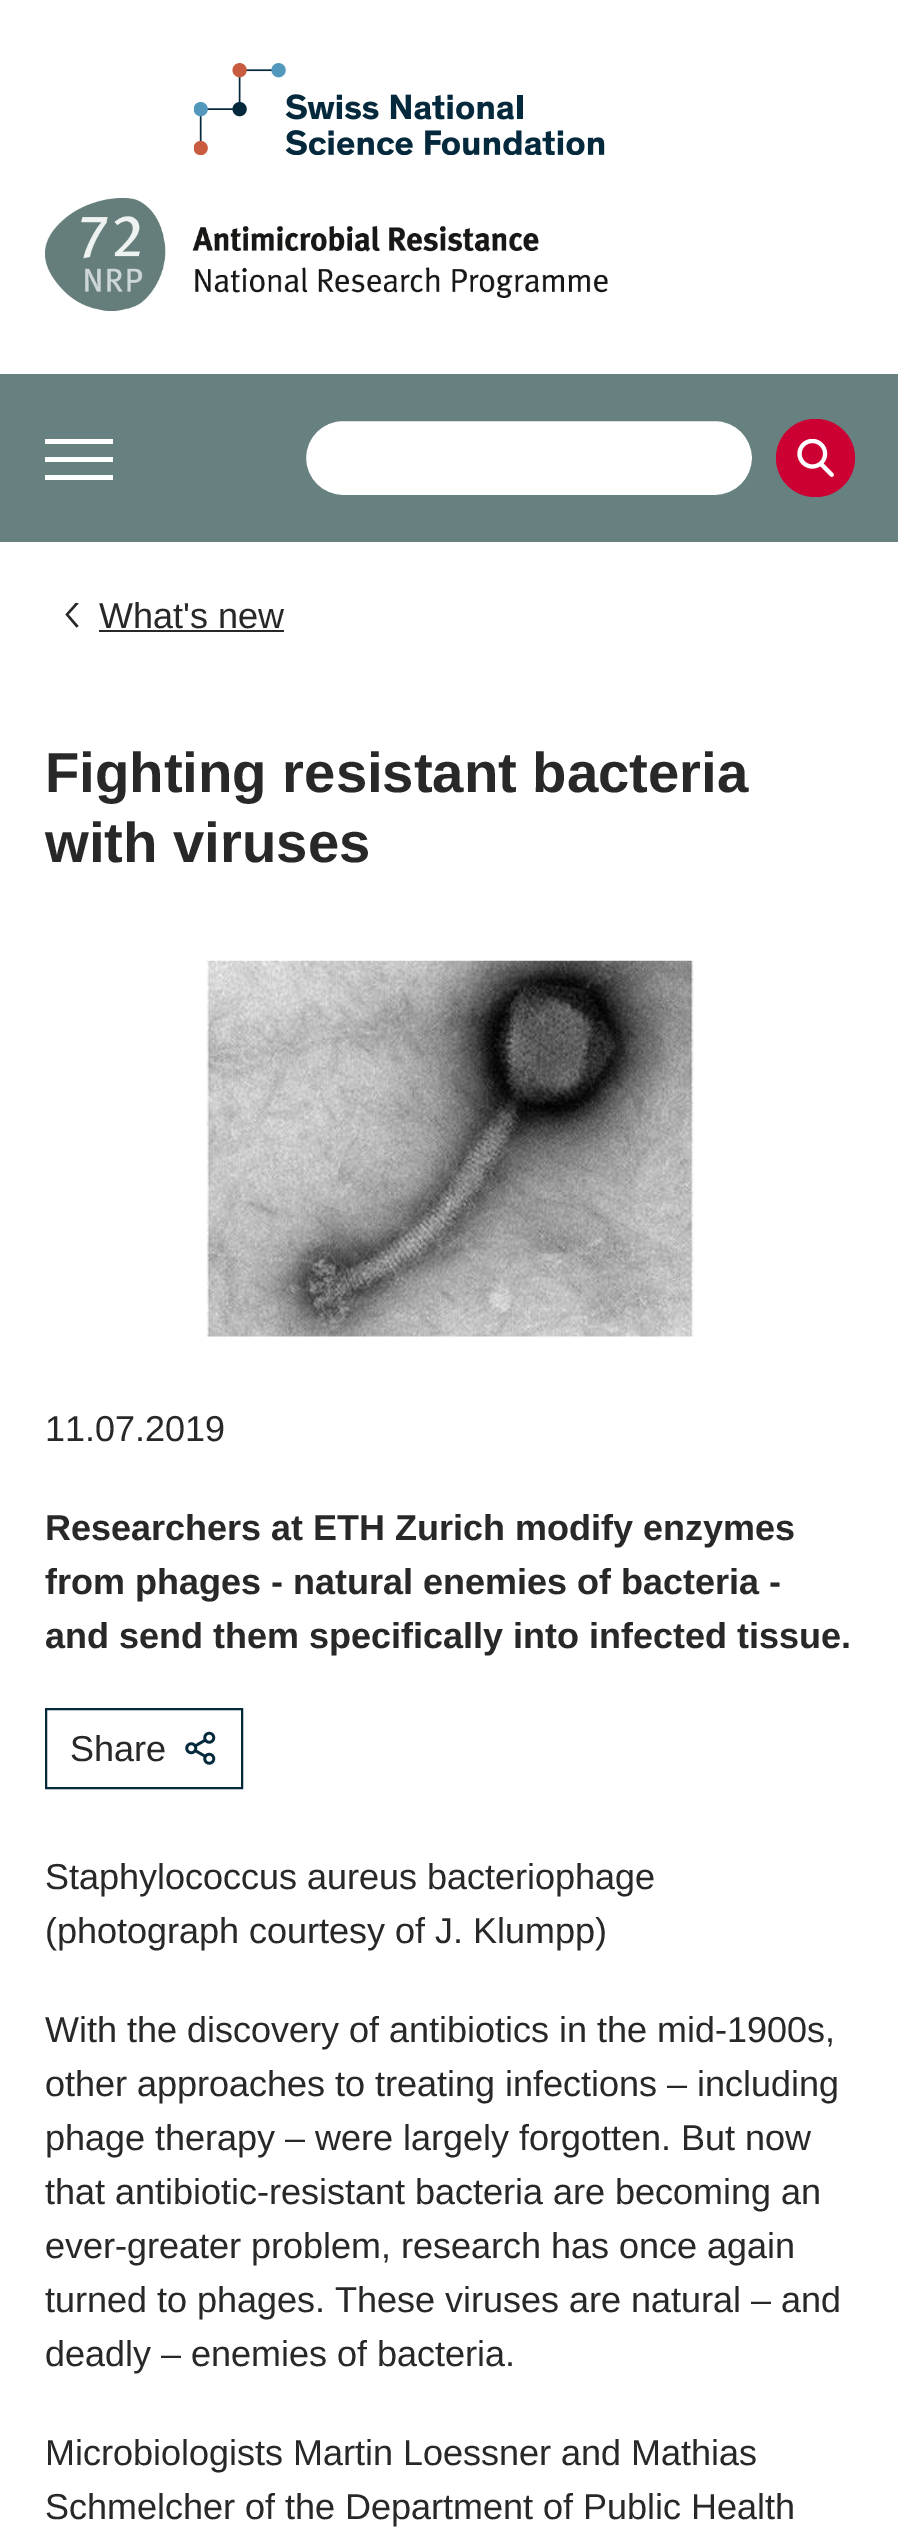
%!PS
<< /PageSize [898 2538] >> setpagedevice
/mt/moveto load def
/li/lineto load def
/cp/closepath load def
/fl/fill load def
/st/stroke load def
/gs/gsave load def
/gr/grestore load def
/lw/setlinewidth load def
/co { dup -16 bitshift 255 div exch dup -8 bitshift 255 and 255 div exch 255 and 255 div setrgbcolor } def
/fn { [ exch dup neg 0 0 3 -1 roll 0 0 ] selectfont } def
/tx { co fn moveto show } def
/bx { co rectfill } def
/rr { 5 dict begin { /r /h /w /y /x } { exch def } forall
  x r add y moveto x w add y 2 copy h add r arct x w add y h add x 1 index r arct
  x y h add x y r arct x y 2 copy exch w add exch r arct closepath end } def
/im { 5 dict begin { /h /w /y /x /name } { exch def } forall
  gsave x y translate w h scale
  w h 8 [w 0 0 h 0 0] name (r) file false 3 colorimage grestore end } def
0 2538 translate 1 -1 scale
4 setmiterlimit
0 0 898 2538 16#FFFFFF bx
(media/1.raw) 194 63 411 92 im
(media/2.raw) 45 198 563 113 im
0 374 898 168 16#678181 bx
45 457 68 5 16#FFFFFF bx
45 439 68 5 16#FFFFFF bx
45 475 68 5 16#FFFFFF bx
305 420 448 76 38 rr gs fl gr
16#678181 co
2 lw
st
16#CC0033 co
776 419 79 78 39 rr fl
(media/3.raw) 797 439 37 38 im
gs
63 603 18 25 rectclip
16#282828 co
76.5 602 mt 78.5 603.5 li 68.5 614.5 li 78.5 626 li 76.5 627.5 li 65.5 614.5 li cp fl
gr
99 630 185 2 16#282828 bx
(media/4.raw) 206 960 488 377 im
16#04293C co
46 1709 196 79 rectstroke
(media/5.raw) 185 1731 31 34 im
(What's new) 99 628 /LiberationSans-Regular 36 16#282828 tx
(Fighting resistant bacteria) 45 792 /LiberationSans-Bold 56.25 16#282828 tx
(with viruses) 45 862 /LiberationSans-Bold 56.25 16#282828 tx
(11.07.2019) 45 1441 /LiberationSans-Regular 36 16#282828 tx
(Researchers at ETH Zurich modify enzymes) 45 1540 /LiberationSans-Bold 36 16#282828 tx
(from phages - natural enemies of bacteria -) 45 1594 /LiberationSans-Bold 36 16#282828 tx
(and send them specifically into infected tissue.) 45 1648 /LiberationSans-Bold 36 16#282828 tx
(Share) 70 1761 /LiberationSans-Regular 36 16#282828 tx
(Staphylococcus aureus bacteriophage) 45 1889 /LiberationSans-Regular 36 16#282828 tx
(\(photograph courtesy of J. Klumpp\)) 45 1943 /LiberationSans-Regular 36 16#282828 tx
(With the discovery of antibiotics in the mid-1900s,) 45 2042 /LiberationSans-Regular 36 16#282828 tx
(other approaches to treating infections – including) 45 2096 /LiberationSans-Regular 36 16#282828 tx
(phage therapy – were largely forgotten. But now) 45 2150 /LiberationSans-Regular 36 16#282828 tx
(that antibiotic-resistant bacteria are becoming an) 45 2204 /LiberationSans-Regular 36 16#282828 tx
(ever-greater problem, research has once again) 45 2258 /LiberationSans-Regular 36 16#282828 tx
(turned to phages. These viruses are natural – and) 45 2312 /LiberationSans-Regular 36 16#282828 tx
(deadly – enemies of bacteria.) 45 2366 /LiberationSans-Regular 36 16#282828 tx
(Microbiologists Martin Loessner and Mathias) 45 2465 /LiberationSans-Regular 36 16#282828 tx
(Schmelcher of the Department of Public Health) 45 2519 /LiberationSans-Regular 36 16#282828 tx
showpage
